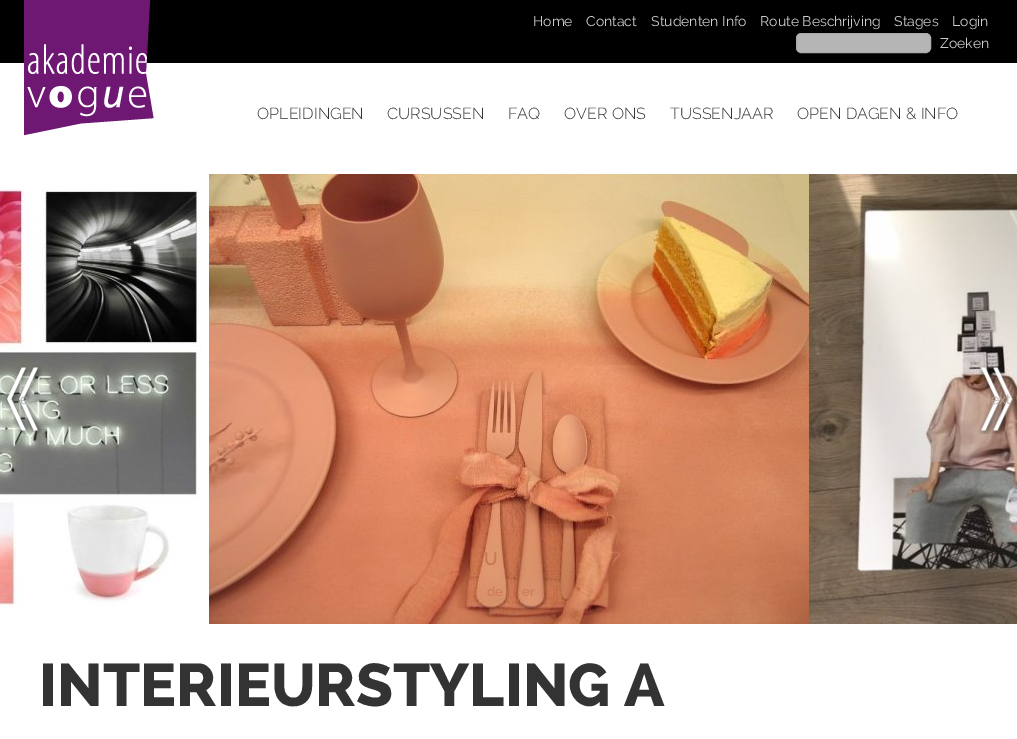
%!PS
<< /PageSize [1017 739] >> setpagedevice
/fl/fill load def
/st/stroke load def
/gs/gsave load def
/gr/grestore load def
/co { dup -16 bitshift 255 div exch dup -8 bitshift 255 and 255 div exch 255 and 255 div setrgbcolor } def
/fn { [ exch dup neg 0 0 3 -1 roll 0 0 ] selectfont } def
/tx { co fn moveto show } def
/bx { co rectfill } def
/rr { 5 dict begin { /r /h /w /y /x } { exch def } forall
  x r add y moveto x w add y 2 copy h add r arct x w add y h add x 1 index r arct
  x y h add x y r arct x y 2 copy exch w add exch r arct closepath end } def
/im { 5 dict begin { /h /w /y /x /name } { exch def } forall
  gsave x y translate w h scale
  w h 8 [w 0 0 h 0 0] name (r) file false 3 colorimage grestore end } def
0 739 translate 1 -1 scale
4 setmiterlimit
0 0 1017 739 16#FFFFFF bx
0 0 1017 63 16#000000 bx
(media/1.raw) 24 0 130 136 im
16#B5B5B5 co
796.5 33.5 134 19 4.5 rr gs fl gr
16#ACACAC co
st
(media/4.raw) 0 189 201 417 im
(media/2.raw) 4 365 39 69 im
(media/6.raw) 809 174 208 450 im
(media/3.raw) 978 365 39 69 im
(media/5.raw) 209 174 600 450 im
(Home) 533 26 /Raleway-Regular 14 16#CCCCCC tx
(Contact) 586 26 /Raleway-Regular 14 16#CCCCCC tx
(Studenten Info) 651 26 /Raleway-Regular 14 16#CCCCCC tx
(Route Beschrijving) 760 26 /Raleway-Regular 14 16#CCCCCC tx
(Stages) 894 26 /Raleway-Regular 14 16#CCCCCC tx
(Login) 952 26 /Raleway-Regular 14 16#CCCCCC tx
(Zoeken) 940 48 /Raleway-Regular 14 16#CCCCCC tx
(OPLEIDINGEN) 257 119 /Raleway-Light 16 16#333333 tx
(CURSUSSEN) 387 119 /Raleway-Light 16 16#333333 tx
(FAQ) 508 119 /Raleway-Light 16 16#333333 tx
(OVER ONS) 564 119 /Raleway-Light 16 16#333333 tx
(TUSSENJAAR) 670 119 /Raleway-Light 16 16#333333 tx
(OPEN DAGEN & INFO) 797 119 /Raleway-Light 16 16#333333 tx
(e) 20 404 /Raleway-Regular 14 16#A2A7A0 tx
(Next) 980 404 /Raleway-Regular 14 16#C1AA9F tx
(U) 484 565 /Raleway-SemiBold 18 16#CA7753 tx
(de) 487 596 /Raleway-SemiBold 13 16#CE7D58 tx
(er) 522 596 /Raleway-SemiBold 13 16#CE7D58 tx
(INTERIEURSTYLING A) 39 706 /Raleway-ExtraBold 60 16#333333 tx
showpage
